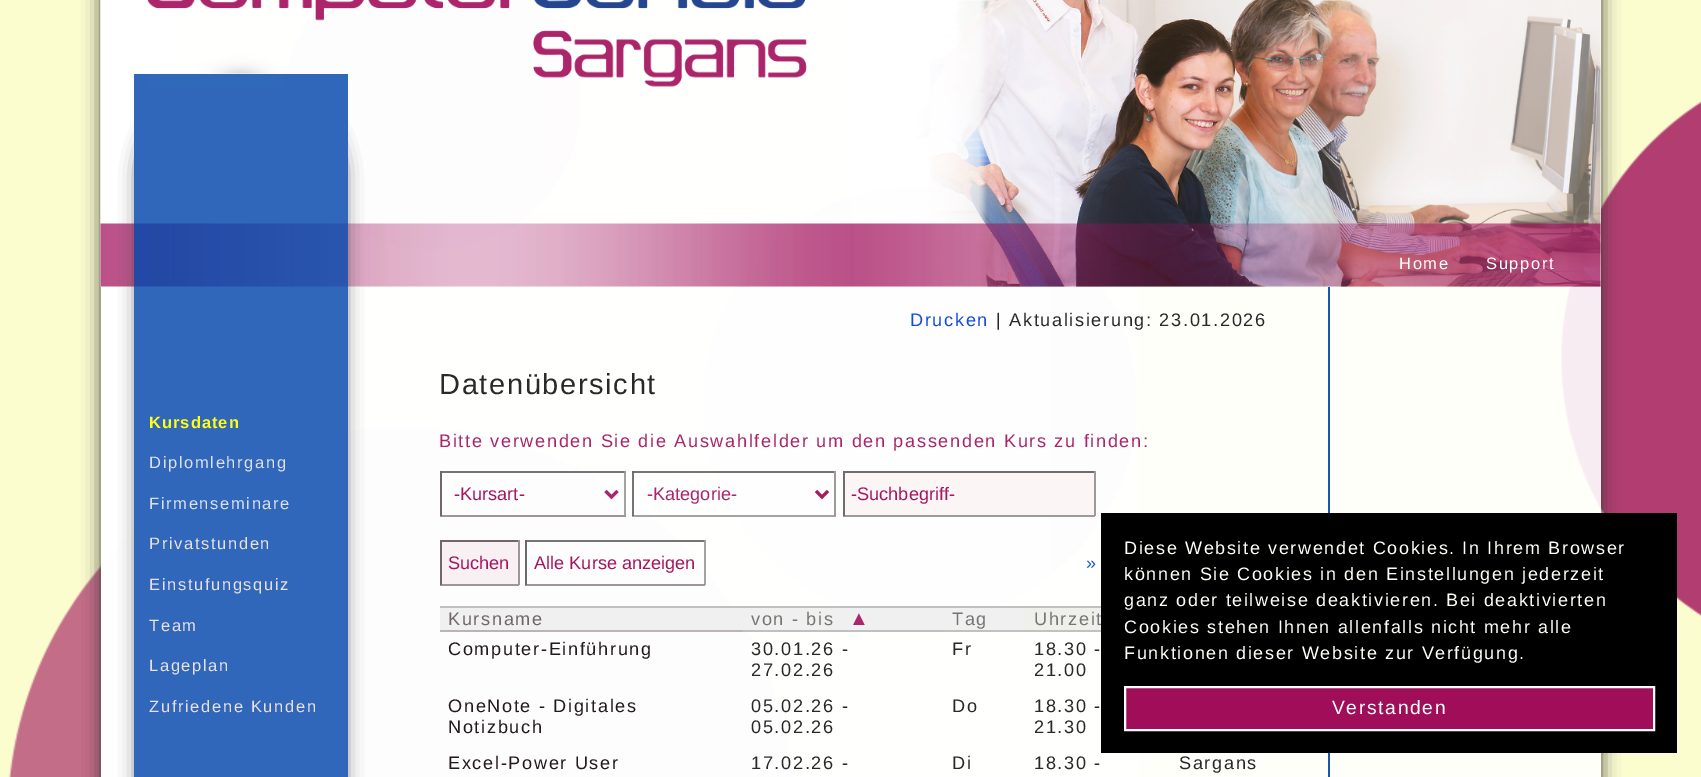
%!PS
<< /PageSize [1701 777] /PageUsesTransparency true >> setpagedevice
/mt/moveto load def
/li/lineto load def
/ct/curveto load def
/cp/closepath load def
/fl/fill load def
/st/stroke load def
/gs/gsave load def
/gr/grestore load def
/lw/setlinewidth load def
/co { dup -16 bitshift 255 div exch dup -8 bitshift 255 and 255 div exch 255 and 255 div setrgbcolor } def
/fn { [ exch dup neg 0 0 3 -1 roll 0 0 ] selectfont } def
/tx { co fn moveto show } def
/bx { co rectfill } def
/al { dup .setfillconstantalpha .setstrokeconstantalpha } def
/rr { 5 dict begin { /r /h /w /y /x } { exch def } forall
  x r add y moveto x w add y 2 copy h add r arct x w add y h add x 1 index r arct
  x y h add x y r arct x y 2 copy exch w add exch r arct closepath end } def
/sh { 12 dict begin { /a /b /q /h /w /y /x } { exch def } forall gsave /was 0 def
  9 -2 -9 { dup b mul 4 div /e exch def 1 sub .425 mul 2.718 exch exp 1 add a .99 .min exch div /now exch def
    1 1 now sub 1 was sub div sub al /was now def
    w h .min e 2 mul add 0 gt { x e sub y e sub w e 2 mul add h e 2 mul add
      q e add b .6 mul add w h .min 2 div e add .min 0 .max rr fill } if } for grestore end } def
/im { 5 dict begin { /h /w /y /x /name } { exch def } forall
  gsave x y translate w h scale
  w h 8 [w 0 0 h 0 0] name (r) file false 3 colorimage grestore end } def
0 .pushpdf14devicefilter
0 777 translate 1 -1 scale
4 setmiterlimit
0 0 1701 777 16#FBFDCF bx
(media/1.raw) 8 0 1693 777 im
gs
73 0 mt 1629 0 li 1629 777 li 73 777 li cp 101 -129 mt 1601 -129 li 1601 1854 li 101 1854 li cp eoclip newpath
16#333333 co
101 -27 1500 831 0 9 .9 sh
gr
0.9 al
101 0 1500 777 16#FFFFFF bx
1 al
(media/2.raw) 100 0 1501 287 im
(media/4.raw) 100 223 1501 64 im
(media/5.raw) 101 287 1037 490 im
gs
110 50 mt 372 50 li 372 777 li 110 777 li cp 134 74 mt 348 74 li 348 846 li 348 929 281 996 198 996 ct 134 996 li cp eoclip newpath
16#333333 co
138 78 206 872 146 9 .81 sh
gr
0.81 al
134 74 214 703 16#0044AA bx
1 al
(media/3.raw) 147 0 660 87 im
1328 287 2 490 16#1957AE bx
440 471 186 2 16#757575 bx
0.9 al
624 471 2 45 16#999999 bx
1 al
440 515 186 2 16#9D9597 bx
440 471 2 45 16#6F6769 bx
16#AA256A co
3 lw
605.5 491 mt 611.5 497 li 617.5 491 li st
632 471 204 2 16#757575 bx
834 471 2 45 16#9F999A bx
0.9 al
632 515 204 2 16#999999 bx
632 471 2 45 16#666666 bx
1 al
16#A61B60 co
816 491 mt 822 497 li 828 491 li st
845 473 249 42 16#FBF5F6 bx
843 471 252 2 16#716C6C bx
1094 471 2 45 16#9F999A bx
843 515 252 2 16#9F999A bx
843 471 2 45 16#716C6C bx
442 542 76 42 16#F9F0F3 bx
440 540 79 2 16#6F6769 bx
518 540 2 45 16#9D9597 bx
440 584 79 2 16#9D9597 bx
440 540 2 45 16#6F6769 bx
525 540 180 2 16#757575 bx
0.9 al
704 540 2 45 16#999999 bx
1 al
525 584 180 2 16#9D9597 bx
525 540 2 45 16#6F6769 bx
440 608 585 22 16#F0F0F0 bx
440 606 585 2 16#C0C0C0 bx
440 630 303 2 16#BCB3B6 bx
743 630 201 2 16#C0C0C0 bx
944 630 157 2 16#C1C2BD bx
1025 608 76 22 16#EFF0EB bx
1025 606 76 2 16#C1C2BD bx
/LiberationSans-Regular 16.5 fn
16#FFFFFA co
1399 269 mt 1.65 0 (Home) ashow
1486 269 mt 1.65 0 (Support) ashow
/LiberationSans-Bold 16.5 fn
16#FFFF15 co
149 428 mt 1 0 (Kursdaten) ashow
/LiberationSans-Regular 16.5 fn
16#DBE1E9 co
149 468 mt 1.65 0 (Diplomlehrgang) ashow
149 509 mt 1.65 0 (Firmenseminare) ashow
16#EAE1E4 co
149 549 mt 1.65 0 (Privatstunden) ashow
149 590 mt 1.65 0 (Einstufungsquiz) ashow
149 631 mt 1.65 0 (Team) ashow
149 671 mt 1.65 0 (Lageplan) ashow
149 712 mt 1.65 0 (Zufriedene Kunden) ashow
/LiberationSans-Regular 18.15 fn
16#164DD7 co
910 326 mt 1.65 0 (Drucken) ashow
16#292929 co
996 326 mt 1.65 0 (| Aktualisierung: 23.01.2026) ashow
/LiberationSans-Regular 29 fn
439 394 mt 1.65 0 (Datenübersicht) ashow
/LiberationSans-Regular 18.15 fn
16#AA256A co
439 447 mt 1.65 0 (Bitte verwenden Sie die Auswahlfelder um den passenden Kurs zu finden:) ashow
(-Kursart-) 454 500 /LiberationSans-Regular 18.15 16#A4175E tx
(-Kategorie-) 647 500 /LiberationSans-Regular 18.15 16#AA256A tx
(-Suchbegriff-) 851 500 /LiberationSans-Regular 18.15 16#A4175E tx
(Suchen) 448 569 /LiberationSans-Regular 18.15 16#A4175E tx
(Alle Kurse anzeigen) 534 569 /LiberationSans-Regular 18.15 16#A4175E tx
16#1957DC co
1086 569 mt 1.65 0 (») ashow
16#6F6769 co
448 625 mt 1.65 0 (Kursname) ashow
16#757571 co
751 625 mt 1.65 0 (von - bis) ashow
/LiberationSans-Regular 20 fn
16#AA256A co
849 625 mt 1.65 0 (▲) ashow
/LiberationSans-Regular 18.15 fn
16#757571 co
952 625 mt 1.65 0 (Tag) ashow
1034 625 mt 1.65 0 (Uhrzeit) ashow
16#231A1D co
448 655 mt 1.65 0 (Computer-Einführung) ashow
16#292929 co
751 655 mt 1.65 0 (30.01.26 -) ashow
751 676 mt 1.65 0 (27.02.26) ashow
952 655 mt 1.65 0 (Fr) ashow
1034 655 mt 1.65 0 (18.30 -) ashow
1034 676 mt 1.65 0 (21.00) ashow
16#231A1D co
448 712 mt 1.65 0 (OneNote - Digitales) ashow
448 733 mt 1.65 0 (Notizbuch) ashow
16#292929 co
751 712 mt 1.65 0 (05.02.26 -) ashow
751 733 mt 1.65 0 (05.02.26) ashow
952 712 mt 1.65 0 (Do) ashow
1034 712 mt 1.65 0 (18.30 -) ashow
1034 733 mt 1.65 0 (21.30) ashow
16#231A1D co
448 769 mt 1.65 0 (Excel-Power User) ashow
16#292929 co
751 769 mt 1.65 0 (17.02.26 -) ashow
952 769 mt 1.65 0 (Di) ashow
1034 769 mt 1.65 0 (18.30 -) ashow
1179 769 mt 1.65 0 (Sargans) ashow
1101 513 576 240 16#000000 bx
/LiberationSans-Regular 18 fn
16#FFFFFA co
1124 554 mt 1.65 0 (Diese Website verwendet Cookies. In Ihrem Browser) ashow
1124 580 mt 1.65 0 (können Sie Cookies in den Einstellungen jederzeit) ashow
1124 606 mt 1.65 0 (ganz oder teilweise deaktivieren. Bei deaktivierten) ashow
1124 633 mt 1.65 0 (Cookies stehen Ihnen allenfalls nicht mehr alle) ashow
1124 659 mt 1.65 0 (Funktionen dieser Website zur Verfügung.) ashow
16#A00D59 co
1125 687 mt 1654 687 li 1654 730 li 1125 730 li cp gs fl gr
16#FFFFFF co
2 lw
st
/LiberationSans-Regular 19.25 fn
16#FFFFFA co
1332 714 mt 1.65 0 (Verstanden) ashow
.poppdf14devicefilter showpage
